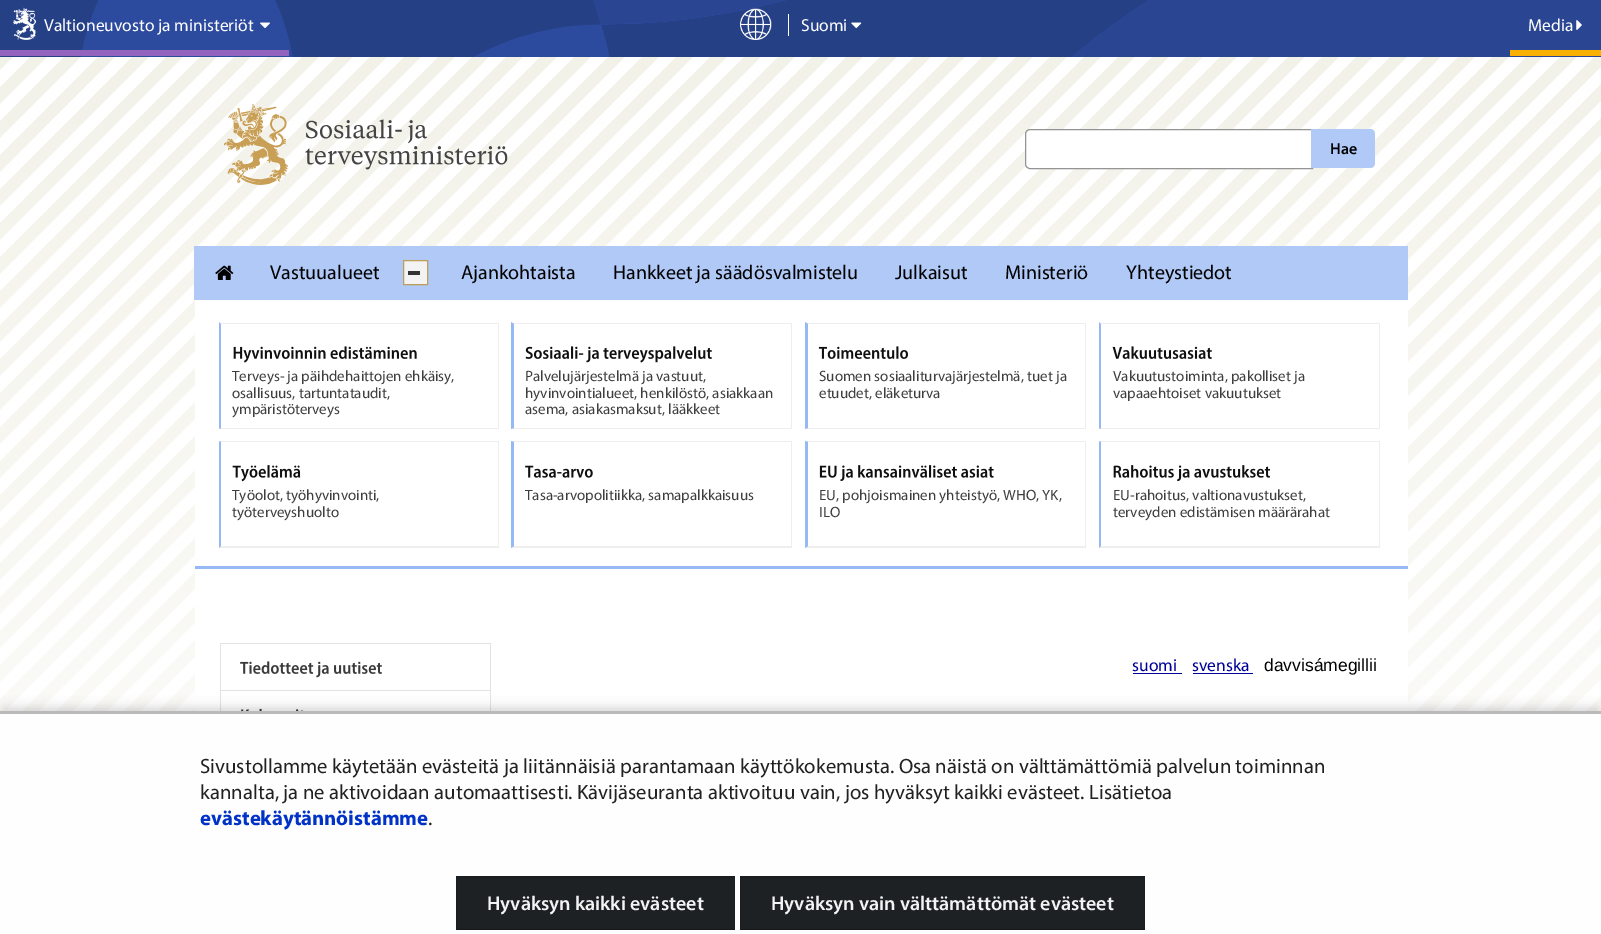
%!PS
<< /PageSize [1601 934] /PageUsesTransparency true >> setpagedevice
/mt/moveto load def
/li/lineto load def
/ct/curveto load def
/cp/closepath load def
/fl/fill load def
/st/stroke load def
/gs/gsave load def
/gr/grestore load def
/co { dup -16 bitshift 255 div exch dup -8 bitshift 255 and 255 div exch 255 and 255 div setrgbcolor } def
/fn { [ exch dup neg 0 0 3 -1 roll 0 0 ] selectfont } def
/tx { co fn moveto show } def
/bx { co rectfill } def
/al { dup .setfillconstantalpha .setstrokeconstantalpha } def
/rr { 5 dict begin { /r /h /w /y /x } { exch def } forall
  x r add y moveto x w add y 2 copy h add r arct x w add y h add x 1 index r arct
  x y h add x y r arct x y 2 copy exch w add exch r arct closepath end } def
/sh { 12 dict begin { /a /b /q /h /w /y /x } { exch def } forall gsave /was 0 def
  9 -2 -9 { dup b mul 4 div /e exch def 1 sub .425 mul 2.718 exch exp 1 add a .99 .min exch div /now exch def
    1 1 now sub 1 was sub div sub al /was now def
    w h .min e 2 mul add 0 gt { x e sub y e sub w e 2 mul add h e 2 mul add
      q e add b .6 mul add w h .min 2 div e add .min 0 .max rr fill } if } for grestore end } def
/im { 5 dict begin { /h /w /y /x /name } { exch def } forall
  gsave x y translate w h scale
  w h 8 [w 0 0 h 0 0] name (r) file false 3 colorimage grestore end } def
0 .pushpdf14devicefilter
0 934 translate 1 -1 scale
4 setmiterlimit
0 0 1601 934 16#FFFFFF bx
(media/1.raw) 0 0 1601 57 im
(media/2.raw) 13 7 23 33 im
0 50 289 6 16#9264BD bx
(media/3.raw) 260 22 10 6 im
(media/4.raw) 740 8 32 32 im
788 14 1 22 16#FFFFFF bx
(media/5.raw) 851 22 11 7 im
1510 50 91 6 16#F9B000 bx
(media/6.raw) 1576 20 6 10 im
(media/7.raw) 0 57 1601 654 im
(media/8.raw) 224 104 284 81 im
16#FFFFFF co
1030 129.5 mt 1312.5 129.5 li 1312.5 168.5 li 1030 168.5 li 1027.5 168.5 1025.5 166.5 1025.5 164 ct 1025.5 134 li 1025.5 131.5 1027.5 129.5 1030 129.5 ct cp gs fl gr
16#949494 co
st
16#B0C9F6 co
1311 129 mt 1370 129 li 1373 129 1375 131 1375 134 ct 1375 163 li 1375 166 1373 168 1370 168 ct 1311 168 li cp fl
0.8 al
195 300 1213 1 16#FFFFFF bx
1 al
194 246 1214 54 16#B0C9F6 bx
16#F4F3F4 co
403.5 260.5 mt 427.5 260.5 li 427.5 284.5 li 403.5 284.5 li cp gs fl gr
16#BC9E5A co
st
408 271 12 4 16#333333 bx
195 301 1213 265 16#FFFFFF bx
195 566 1213 3 16#96B8F3 bx
gs
219 323 1176 237 rectclip
16#EEEEEE co
219 322 mt 499 322 li 498 324 li 221 324 li cp fl
gr
498 323 1 106 16#EEEEEE bx
499 429 mt 219 429 li 221 428 li 498 428 li cp fl
16#96B8F3 co
219 429 mt 219 322 li 221 324 li 221 428 li cp fl
(media/9.raw) 233 346 184 17 im
gs
219 323 1176 237 rectclip
16#EEEEEE co
511 322 mt 792 322 li 791 324 li 514 324 li cp fl
gr
791 323 1 106 16#EEEEEE bx
792 429 mt 511 429 li 514 428 li 791 428 li cp fl
16#96B8F3 co
511 429 mt 511 322 li 514 324 li 514 428 li cp fl
(media/10.raw) 525 346 187 17 im
gs
219 323 1176 237 rectclip
16#EEEEEE co
805 322 mt 1086 322 li 1085 324 li 808 324 li cp fl
gr
1085 323 1 106 16#EEEEEE bx
1086 429 mt 805 429 li 808 428 li 1085 428 li cp fl
16#96B8F3 co
805 429 mt 805 322 li 808 324 li 808 428 li cp fl
(media/11.raw) 818 346 90 13 im
gs
219 323 1176 237 rectclip
16#EEEEEE co
1099 322 mt 1380 322 li 1379 324 li 1101 324 li cp fl
gr
1379 323 1 106 16#EEEEEE bx
1380 429 mt 1099 429 li 1101 428 li 1379 428 li cp fl
16#96B8F3 co
1099 429 mt 1099 322 li 1101 324 li 1101 428 li cp fl
(media/12.raw) 1112 346 100 13 im
16#EEEEEE co
219 441 mt 499 441 li 498 442 li 221 442 li cp fl
498 441 1 107 16#EEEEEE bx
499 548 mt 219 548 li 221 546 li 498 546 li cp fl
16#96B8F3 co
219 548 mt 219 441 li 221 442 li 221 546 li cp fl
(media/13.raw) 232 465 69 17 im
16#EEEEEE co
511 441 mt 792 441 li 791 442 li 514 442 li cp fl
791 441 1 107 16#EEEEEE bx
792 548 mt 511 548 li 514 546 li 791 546 li cp fl
16#96B8F3 co
511 548 mt 511 441 li 514 442 li 514 546 li cp fl
(media/14.raw) 525 465 68 13 im
16#EEEEEE co
805 441 mt 1086 441 li 1085 442 li 808 442 li cp fl
1085 441 1 107 16#EEEEEE bx
1086 548 mt 805 548 li 808 546 li 1085 546 li cp fl
16#96B8F3 co
805 548 mt 805 441 li 808 442 li 808 546 li cp fl
(media/15.raw) 819 465 175 17 im
16#EEEEEE co
1099 441 mt 1380 441 li 1379 442 li 1101 442 li cp fl
1379 441 1 107 16#EEEEEE bx
1380 548 mt 1099 548 li 1101 546 li 1379 546 li cp fl
16#96B8F3 co
1099 548 mt 1099 441 li 1101 442 li 1101 546 li cp fl
(media/16.raw) 1113 465 157 17 im
(media/17.raw) 215 265 19 15 im
195 569 1213 142 16#FFFFFF bx
220 643 271 1 16#E4E3E4 bx
490 643 1 68 16#E4E3E4 bx
220 643 1 68 16#E4E3E4 bx
221 690 269 1 16#E4E3E4 bx
(media/18.raw) 240 661 142 17 im
(media/19.raw) 241 708 62 3 im
1133 673 49 1 16#000099 bx
1193 673 60 1 16#000099 bx
16#000000 co
4 709 1594 216 0 6 .2 sh
0 714 1601 220 16#FEFEFE bx
0 711 1601 3 16#BABABA bx
456 876 279 54 16#1D2124 bx
16#1A1E20 co
456 876 mt 735 876 li 734 878 li 458 878 li cp fl
735 876 mt 735 930 li 734 929 li 734 878 li cp fl
16#16191B co
735 930 mt 456 930 li 458 929 li 734 929 li cp fl
16#1A1E20 co
456 930 mt 456 876 li 458 878 li 458 929 li cp fl
740 876 405 54 16#1D2124 bx
16#1A1E20 co
740 876 mt 1145 876 li 1144 878 li 741 878 li cp fl
1145 876 mt 1145 930 li 1144 929 li 1144 878 li cp fl
16#16191B co
1145 930 mt 740 930 li 741 929 li 1144 929 li cp fl
0.1 al
16#000000 co
740 930 mt 740 876 li 741 878 li 741 929 li cp fl
1 al
(Valtioneuvosto ja ministeriöt) 44 31 /Myriad-Regular 17.5 16#FFFFFF tx
(Suomi) 801 31 /Myriad-Regular 17.5 16#FFFFFF tx
(Media) 1528 31 /Myriad-Regular 17.5 16#FFFFFF tx
(Hae) 1330 154 /Myriad-SemiBold 16 16#000000 tx
(Vastuualueet) 270 279 /Myriad-Regular 20 16#000000 tx
(Terveys- ja päihdehaittojen ehkäisy,) 232 381 /Myriad-Regular 15 16#3E3E3E tx
(osallisuus, tartuntataudit,) 232 398 /Myriad-Regular 15 16#3E3E3E tx
(ympäristöterveys) 232 414 /Myriad-Regular 15 16#3E3E3E tx
(Palvelujärjestelmä ja vastuut,) 525 381 /Myriad-Regular 15 16#3E3E3E tx
(hyvinvointialueet, henkilöstö, asiakkaan) 525 398 /Myriad-Regular 15 16#3E3E3E tx
(asema, asiakasmaksut, lääkkeet) 525 414 /Myriad-Regular 15 16#3E3E3E tx
(Suomen sosiaaliturvajärjestelmä, tuet ja) 819 381 /Myriad-Regular 15 16#3E3E3E tx
(etuudet, eläketurva) 819 398 /Myriad-Regular 15 16#3E3E3E tx
(Vakuutustoiminta, pakolliset ja) 1113 381 /Myriad-Regular 15 16#3E3E3E tx
(vapaaehtoiset vakuutukset) 1113 398 /Myriad-Regular 15 16#3E3E3E tx
(Työolot, työhyvinvointi,) 232 500 /Myriad-Regular 15 16#3E3E3E tx
(työterveyshuolto) 232 517 /Myriad-Regular 15 16#3E3E3E tx
(Tasa-arvopolitiikka, samapalkkaisuus) 525 500 /Myriad-Regular 15 16#3E3E3E tx
(EU, pohjoismainen yhteistyö, WHO, YK,) 819 500 /Myriad-Regular 15 16#3E3E3E tx
(ILO) 819 517 /Myriad-Regular 15 16#3E3E3E tx
(EU-rahoitus, valtionavustukset,) 1113 500 /Myriad-Regular 15 16#3E3E3E tx
(terveyden edistämisen määrärahat) 1113 517 /Myriad-Regular 15 16#3E3E3E tx
(Ajankohtaista) 461 279 /Myriad-Regular 20 16#000000 tx
(Hankkeet ja säädösvalmistelu) 613 279 /Myriad-Regular 20 16#000000 tx
(Julkaisut) 895 279 /Myriad-Regular 20 16#000000 tx
(Ministeriö) 1005 279 /Myriad-Regular 20 16#000000 tx
(Yhteystiedot) 1126 279 /Myriad-Regular 20 16#000000 tx
(suomi) 1132 671 /Myriad-Regular 17.5 16#000099 tx
(svenska) 1192 671 /Myriad-Regular 17.5 16#000099 tx
(davvisámegillii) 1264 671 /LiberationSans-Regular 17.5 16#000000 tx
(Sivustollamme käytetään evästeitä ja liitännäisiä parantamaan käyttökokemusta. Osa näistä on välttämättömiä palvelun toiminnan) 200 773 /Myriad-Regular 20.75 16#212121 tx
(kannalta, ja ne aktivoidaan automaattisesti. Kävijäseuranta aktivoituu vain, jos hyväksyt kaikki evästeet. Lisätietoa) 200 799 /Myriad-Regular 20.75 16#212121 tx
(evästekäytännöistämme) 200 825 /Myriad-Bold 20.75 16#0032C8 tx
(.) 428 825 /Myriad-Regular 20.75 16#212121 tx
(Hyväksyn kaikki evästeet) 487 910 /Myriad-SemiBold 20 16#F4F3F4 tx
(Hyväksyn vain välttämättömät evästeet) 771 910 /Myriad-SemiBold 20 16#F4F3F4 tx
.poppdf14devicefilter showpage
